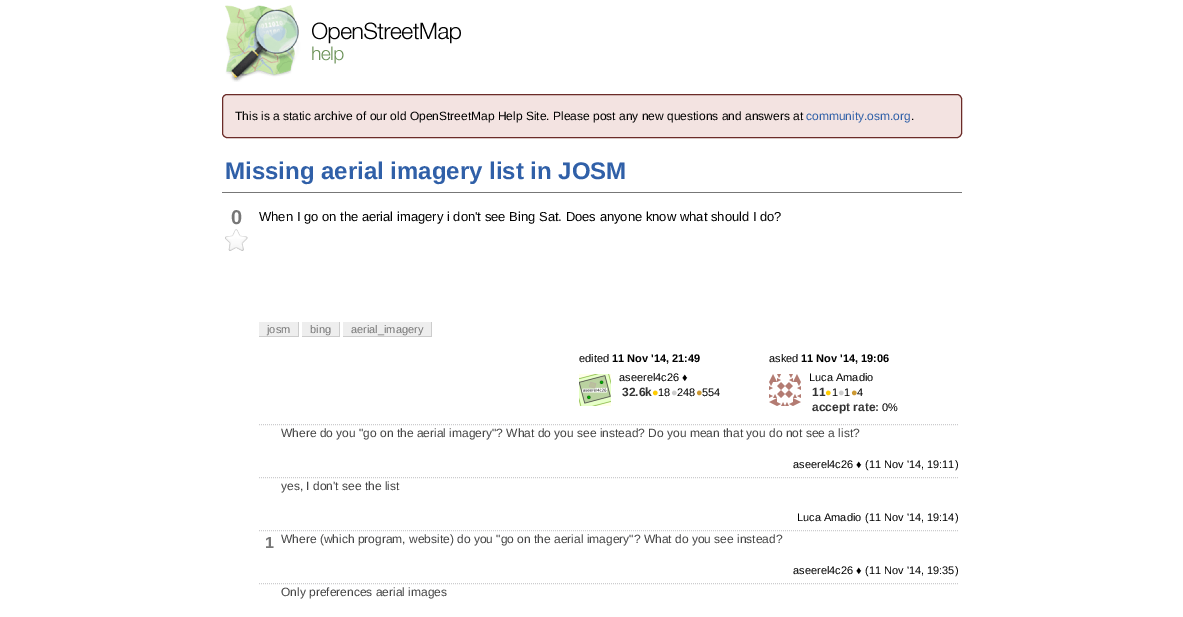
%!PS
<< /PageSize [1183 617] >> setpagedevice
/mt/moveto load def
/li/lineto load def
/fl/fill load def
/st/stroke load def
/gs/gsave load def
/gr/grestore load def
/co { dup -16 bitshift 255 div exch dup -8 bitshift 255 and 255 div exch 255 and 255 div setrgbcolor } def
/fn { [ exch dup neg 0 0 3 -1 roll 0 0 ] selectfont } def
/tx { co fn moveto show } def
/bx { co rectfill } def
/rr { 5 dict begin { /r /h /w /y /x } { exch def } forall
  x r add y moveto x w add y 2 copy h add r arct x w add y h add x 1 index r arct
  x y h add x y r arct x y 2 copy exch w add exch r arct closepath end } def
/im { 5 dict begin { /h /w /y /x /name } { exch def } forall
  gsave x y translate w h scale
  w h 8 [w 0 0 h 0 0] name (r) file false 3 colorimage grestore end } def
0 617 translate 1 -1 scale
4 setmiterlimit
0 0 1183 617 16#FFFFFF bx
(media/1.raw) 225 5 236 77 im
16#F3E3E1 co
222.5 94.5 739 43 4.5 rr gs fl gr
16#6B2B28 co
st
222 192 740 1 16#777777 bx
(media/2.raw) 225 229 23 22 im
259 322 39 14 16#EEEEEE bx
298 322 1 15 16#CCCCCC bx
259 336 40 1 16#CCCCCC bx
302 322 37 14 16#EEEEEE bx
339 322 1 15 16#CCCCCC bx
302 336 38 1 16#CCCCCC bx
343 322 88 14 16#EEEEEE bx
431 322 1 15 16#CCCCCC bx
343 336 89 1 16#CCCCCC bx
(media/3.raw) 579 374 32 32 im
(media/4.raw) 769 374 32 32 im
16#CCCCCE co
[1 1] 0 setdash
259 424.5 mt 959 424.5 li st
259 477.5 mt 959 477.5 li st
259 530.5 mt 959 530.5 li st
259 583.5 mt 959 583.5 li st
(This is a static archive of our old OpenStreetMap Help Site. Please post any new questions and answers at) 235 120 /LiberationSans-Regular 12 16#000000 tx
(community.osm.org) 806 120 /LiberationSans-Regular 12 16#3060A8 tx
(.) 911 120 /LiberationSans-Regular 12 16#000000 tx
(Missing aerial imagery list in JOSM) 225 179 /LiberationSans-Bold 24 16#3060A8 tx
(0) 231 224 /LiberationSans-Bold 20 16#777777 tx
(When I go on the aerial imagery i don't see Bing Sat. Does anyone know what should I do?) 259 221 /LiberationSans-Regular 13 16#000000 tx
(josm) 267 333 /LiberationSans-Regular 11 16#777777 tx
(bing) 310 333 /LiberationSans-Regular 11 16#777777 tx
(aerial_imagery) 351 333 /LiberationSans-Regular 11 16#777777 tx
(edited) 579 362 /LiberationSans-Regular 11 16#000000 tx
(11 Nov '14, 21:49) 612 362 /LiberationSans-Bold 11 16#000000 tx
(aseerel4c26 ♦) 619 381 /LiberationSans-Regular 11 16#000000 tx
(32.6k) 622 396 /LiberationSans-Bold 12 16#333333 tx
(●) 652 396 /LiberationSans-Regular 11 16#FFCC00 tx
(18) 658 396 /LiberationSans-Regular 11 16#000000 tx
(●) 671 396 /LiberationSans-Regular 11 16#CCCCCC tx
(248) 677 396 /LiberationSans-Regular 11 16#000000 tx
(●) 696 396 /LiberationSans-Regular 11 16#CC9933 tx
(554) 702 396 /LiberationSans-Regular 11 16#000000 tx
(asked) 769 362 /LiberationSans-Regular 11 16#000000 tx
(11 Nov '14, 19:06) 801 362 /LiberationSans-Bold 11 16#000000 tx
(Luca Amadio) 809 381 /LiberationSans-Regular 11 16#000000 tx
(11) 812 396 /LiberationSans-Bold 12 16#333333 tx
(●) 825 396 /LiberationSans-Regular 11 16#FFCC00 tx
(1) 832 396 /LiberationSans-Regular 11 16#000000 tx
(●) 838 396 /LiberationSans-Regular 11 16#CCCCCC tx
(1) 844 396 /LiberationSans-Regular 11 16#000000 tx
(●) 851 396 /LiberationSans-Regular 11 16#CC9933 tx
(4) 857 396 /LiberationSans-Regular 11 16#000000 tx
(accept rate:) 812 411 /LiberationSans-Bold 12 16#333333 tx
(0%) 882 411 /LiberationSans-Regular 11 16#000000 tx
(Where do you "go on the aerial imagery"? What do you see instead? Do you mean that you do not see a list?) 281 437 /LiberationSans-Regular 12 16#444444 tx
(aseerel4c26 ♦) 793 468 /LiberationSans-Regular 11 16#000000 tx
(\(11 Nov '14, 19:11\)) 865 468 /LiberationSans-Regular 11 16#000000 tx
(yes, I don't see the list) 281 490 /LiberationSans-Regular 12 16#444444 tx
(Luca Amadio) 797 521 /LiberationSans-Regular 11 16#000000 tx
(\(11 Nov '14, 19:14\)) 865 521 /LiberationSans-Regular 11 16#000000 tx
(1) 265 548 /LiberationSans-Bold 16 16#777777 tx
(Where \(which program, website\) do you "go on the aerial imagery"? What do you see instead?) 281 543 /LiberationSans-Regular 12 16#444444 tx
(aseerel4c26 ♦) 793 574 /LiberationSans-Regular 11 16#000000 tx
(\(11 Nov '14, 19:35\)) 865 574 /LiberationSans-Regular 11 16#000000 tx
(Only preferences aerial images) 281 596 /LiberationSans-Regular 12 16#444444 tx
showpage
